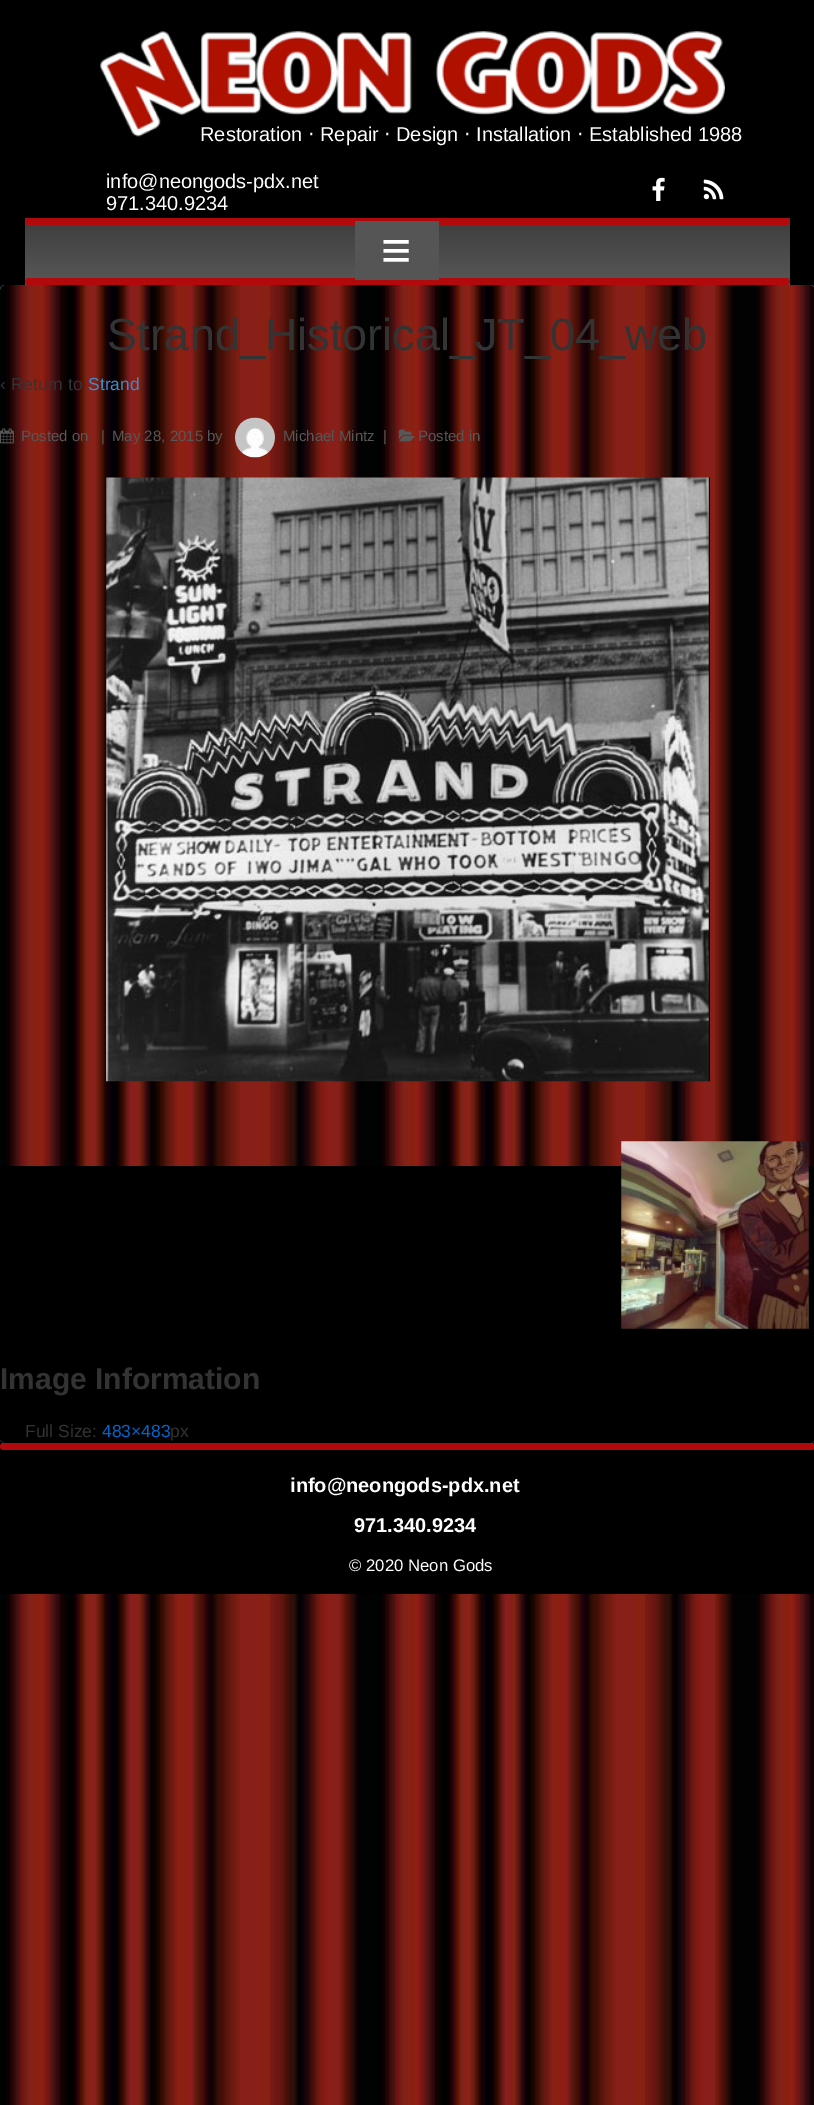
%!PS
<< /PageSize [814 2105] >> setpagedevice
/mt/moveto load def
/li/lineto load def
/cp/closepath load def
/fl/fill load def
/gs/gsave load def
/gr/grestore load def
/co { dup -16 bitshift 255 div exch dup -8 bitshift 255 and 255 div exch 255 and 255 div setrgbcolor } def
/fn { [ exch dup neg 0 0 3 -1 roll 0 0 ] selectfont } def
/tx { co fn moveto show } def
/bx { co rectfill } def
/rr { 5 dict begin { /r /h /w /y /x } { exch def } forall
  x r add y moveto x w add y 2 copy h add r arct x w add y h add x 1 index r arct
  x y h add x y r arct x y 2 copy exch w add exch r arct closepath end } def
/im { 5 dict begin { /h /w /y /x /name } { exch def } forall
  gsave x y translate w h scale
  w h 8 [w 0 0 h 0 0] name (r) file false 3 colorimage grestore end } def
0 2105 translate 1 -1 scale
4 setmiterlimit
0 0 814 2105 16#FFFFFF bx
(media/1.raw) 0 285 814 1820 im
0 0 814 285 16#000000 bx
(media/2.raw) 100 31 625 106 im
(media/3.raw) 652 177 13 24 im
(media/4.raw) 703 179 21 21 im
gs 25 218 mt 790 218 li 790 285 li 25 285 li cp clip newpath
<< /ShadingType 2 /ColorSpace /DeviceRGB /Coords [408 285 408 218] /Extend [true true] /Function << /FunctionType 2 /Domain [0 1] /C0 [.345 .345 .345] /C1 [.239 .239 .239] /N 1 >> >> shfill gr
16#B2090D co
25 218 765 7 3.5 rr fl
25 278 765 7 3.5 rr fl
355 221 84 59 16#555555 bx
(media/5.raw) 0 285 814 1158 im
(media/6.raw) 0 428 14 16 im
(media/7.raw) 235 417 40 41 im
(media/8.raw) 398 429 17 13 im
(media/9.raw) 106 477 604 605 im
16#000000 co
0 1166 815 277 5 rr fl
(media/10.raw) 621 1141 188 188 im
16#B2090D co
0 1443 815 7 3.5 rr fl
0 1450 814 144 16#000000 bx
(Restoration) 200 141 /LiberationSans-Regular 20 16#FFFFFF tx
(⋅) 308 141 /DejaVuSans-Regular 20 16#FFFFFF tx
(Repair) 320 141 /LiberationSans-Regular 20 16#FFFFFF tx
(⋅) 384 141 /DejaVuSans-Regular 20 16#FFFFFF tx
(Design) 396 141 /LiberationSans-Regular 20 16#FFFFFF tx
(⋅) 464 141 /DejaVuSans-Regular 20 16#FFFFFF tx
(Installation) 476 141 /LiberationSans-Regular 20 16#FFFFFF tx
(⋅) 577 141 /DejaVuSans-Regular 20 16#FFFFFF tx
(Established 1988) 589 141 /LiberationSans-Regular 20 16#FFFFFF tx
(info@neongods-pdx.net) 106 188 /LiberationSans-Regular 20 16#FFFFFF tx
(971.340.9234) 106 210 /LiberationSans-Regular 20 16#FFFFFF tx
(≡) 381 268 /LiberationSans-Regular 52 16#FFFFFF tx
(Strand_Historical_JT_04_web) 107 350 /LiberationSans-Regular 45 16#333333 tx
(‹ Return to) 0 390 /LiberationSans-Regular 17.5 16#333333 tx
(Strand) 88 390 /LiberationSans-Regular 17.5 16#428BCA tx
(Posted on) 21 441 /LiberationSans-Regular 15 16#575757 tx
(|) 101 441 /LiberationSans-Regular 15 16#575757 tx
(May 28, 2015 by) 112 441 /LiberationSans-Regular 15 16#575757 tx
(Michael Mintz) 283 441 /LiberationSans-Regular 15 16#575757 tx
(|) 383 441 /LiberationSans-Regular 15 16#575757 tx
(Posted in) 418 441 /LiberationSans-Regular 15 16#575757 tx
(Image Information) 0 1389 /LiberationSans-Bold 30 16#333333 tx
(Full Size:) 25 1437 /LiberationSans-Regular 17.5 16#333333 tx
(483×483) 102 1437 /LiberationSans-Regular 17.5 16#0066CC tx
(px) 170 1437 /LiberationSans-Regular 17.5 16#333333 tx
(info@neongods-pdx.net) 290 1492 /LiberationSans-Bold 20 16#FFFFFF tx
(971.340.9234) 354 1532 /LiberationSans-Bold 20 16#FFFFFF tx
(© 2020 Neon Gods) 349 1571 /LiberationSans-Regular 16.75 16#FFFFFF tx
showpage
